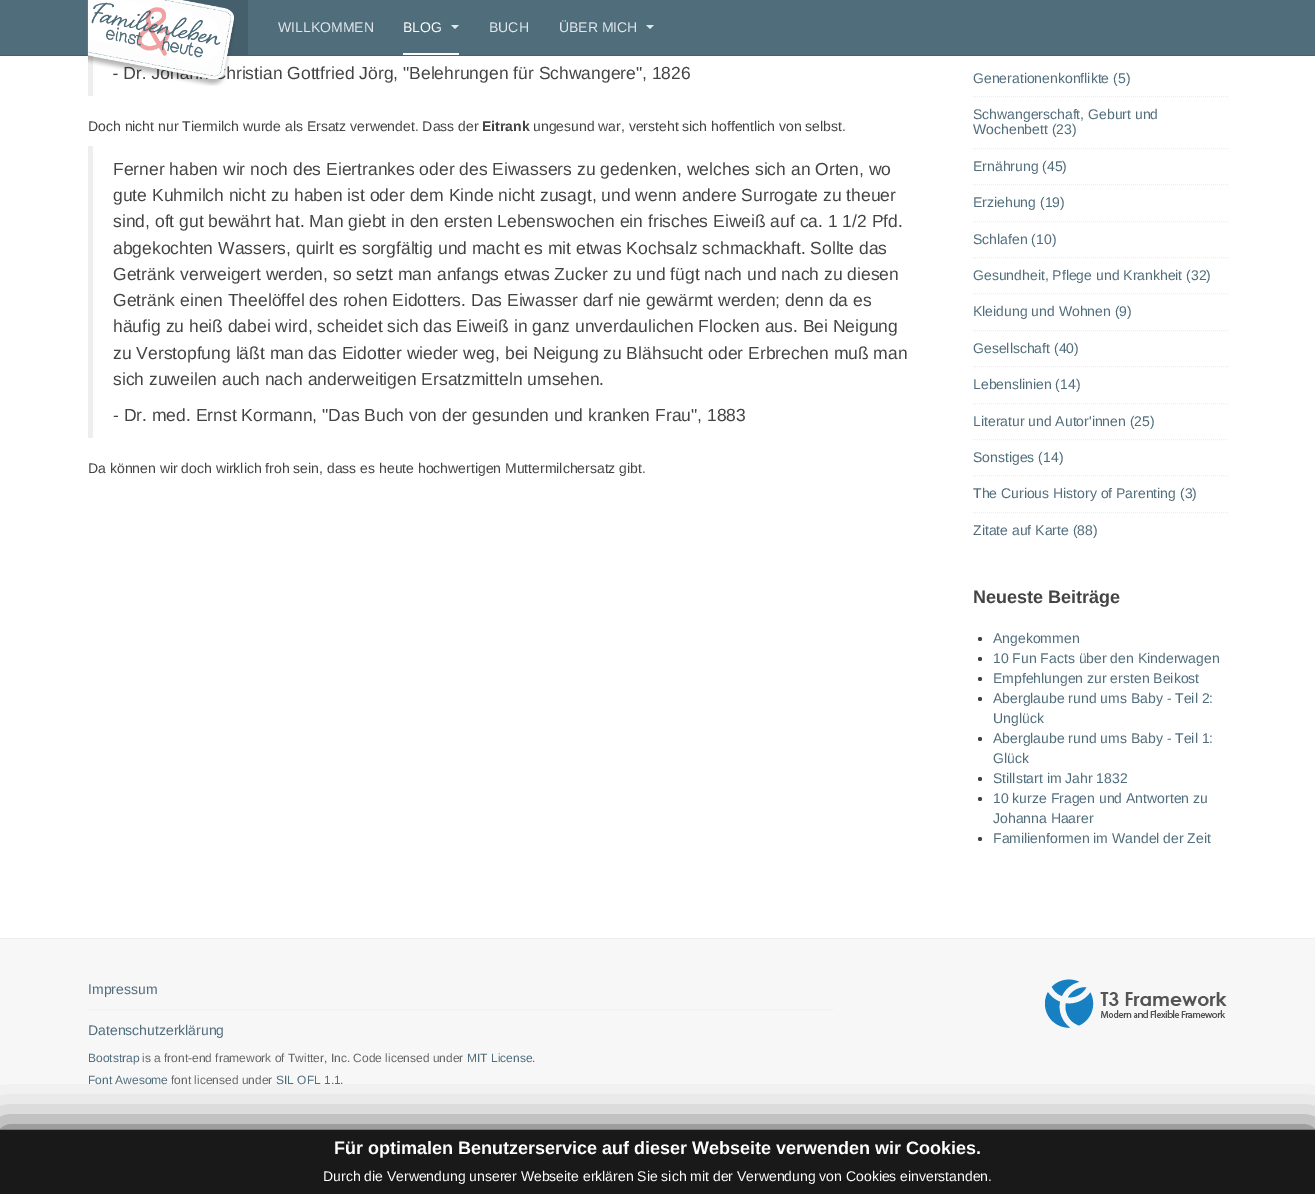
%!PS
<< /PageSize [1315 1194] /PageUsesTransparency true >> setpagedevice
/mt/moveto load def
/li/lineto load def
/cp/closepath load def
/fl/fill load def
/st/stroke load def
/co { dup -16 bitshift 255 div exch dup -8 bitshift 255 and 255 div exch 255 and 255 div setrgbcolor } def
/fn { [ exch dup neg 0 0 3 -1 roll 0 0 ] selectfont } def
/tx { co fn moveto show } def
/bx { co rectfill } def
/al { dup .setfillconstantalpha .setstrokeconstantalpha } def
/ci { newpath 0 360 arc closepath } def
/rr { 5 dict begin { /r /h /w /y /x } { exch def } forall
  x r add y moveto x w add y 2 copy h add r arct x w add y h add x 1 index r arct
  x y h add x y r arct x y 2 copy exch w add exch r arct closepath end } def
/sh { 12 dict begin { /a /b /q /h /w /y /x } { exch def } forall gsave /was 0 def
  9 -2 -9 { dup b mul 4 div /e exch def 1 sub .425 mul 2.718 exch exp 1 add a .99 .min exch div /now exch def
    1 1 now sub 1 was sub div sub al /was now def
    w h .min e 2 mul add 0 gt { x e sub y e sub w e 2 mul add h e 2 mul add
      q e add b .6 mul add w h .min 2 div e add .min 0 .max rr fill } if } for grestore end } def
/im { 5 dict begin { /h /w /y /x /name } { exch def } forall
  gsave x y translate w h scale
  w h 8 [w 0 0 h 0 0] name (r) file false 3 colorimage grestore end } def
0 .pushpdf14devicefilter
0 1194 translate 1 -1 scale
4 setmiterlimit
0 0 1315 1194 16#FFFFFF bx
0 0 1315 55 16#506D7B bx
0 55 1315 1 16#465F6C bx
182 0 66 55 16#465F6C bx
403 53 56 2 16#FFFFFF bx
16#DFE7EB co
451 25 mt 459 25 li 455 29 li cp fl
646 25 mt 654 25 li 650 29 li cp fl
88 56 5 40 16#EEEEEE bx
88 146 5 292 16#EEEEEE bx
[1 1] 0 setdash
973 96.5 mt 1228 96.5 li st
973 148.5 mt 1228 148.5 li st
973 184.5 mt 1228 184.5 li st
973 221.5 mt 1228 221.5 li st
973 257.5 mt 1228 257.5 li st
973 293.5 mt 1228 293.5 li st
973 330.5 mt 1228 330.5 li st
973 366.5 mt 1228 366.5 li st
973 403.5 mt 1228 403.5 li st
973 439.5 mt 1228 439.5 li st
973 475.5 mt 1228 475.5 li st
973 512.5 mt 1228 512.5 li st
16#444444 co
980 639 2 ci fl
980 659 2 ci fl
980 679 2 ci fl
980 699 2 ci fl
980 739 2 ci fl
980 779 2 ci fl
980 799 2 ci fl
980 839 2 ci fl
0 939 1315 190 16#F7F7F7 bx
0 938 1315 1 16#EEEEEE bx
88 1009.5 mt 834 1009.5 li st
16#444444 co
0 1129 1315 65 0 20 1 sh
0 1130 1315 64 16#191919 bx
0 1129 1315 1 16#1994F3 bx
(media/2.raw) 1045 979 182 49 im
(WILLKOMMEN) 278 32 /LiberationSans-Regular 14 16#DFE7EB tx
(BLOG) 403 32 /LiberationSans-Regular 14 16#FFFFFF tx
(BUCH) 489 32 /LiberationSans-Regular 14 16#DFE7EB tx
(ÜBER MICH) 559 32 /LiberationSans-Regular 14 16#DFE7EB tx
(- Dr.) 113 79 /LiberationSans-Regular 17.5 16#444444 tx
(hristian Gottfried Jörg, "Belehrungen für Schwangere", 1826) 226 79 /LiberationSans-Regular 17.5 16#444444 tx
(media/1.raw) 87 0 148 86 im
(Doch nicht nur Tiermilch wurde als Ersatz verwendet. Dass der) 88 131 /LiberationSans-Regular 14 16#444444 tx
(Eitrank) 482 131 /LiberationSans-Bold 14 16#444444 tx
(ungesund war, versteht sich hoffentlich von selbst.) 533 131 /LiberationSans-Regular 14 16#444444 tx
(Ferner haben wir noch des Eiertrankes oder des Eiwassers zu gedenken, welches sich an Orten, wo) 113 175 /LiberationSans-Regular 17.5 16#444444 tx
(gute Kuhmilch nicht zu haben ist oder dem Kinde nicht zusagt, und wenn andere Surrogate zu theuer) 113 201 /LiberationSans-Regular 17.5 16#444444 tx
(sind, oft gut bewährt hat. Man giebt in den ersten Lebenswochen ein frisches Eiweiß auf ca. 1 1/2 Pfd.) 113 227 /LiberationSans-Regular 17.5 16#444444 tx
(abgekochten Wassers, quirlt es sorgfältig und macht es mit etwas Kochsalz schmackhaft. Sollte das) 113 254 /LiberationSans-Regular 17.5 16#444444 tx
(Getränk verweigert werden, so setzt man anfangs etwas Zucker zu und fügt nach und nach zu diesen) 113 280 /LiberationSans-Regular 17.5 16#444444 tx
(Getränk einen Theelöffel des rohen Eidotters. Das Eiwasser darf nie gewärmt werden; denn da es) 113 306 /LiberationSans-Regular 17.5 16#444444 tx
(häufig zu heiß dabei wird, scheidet sich das Eiweiß in ganz unverdaulichen Flocken aus. Bei Neigung) 113 332 /LiberationSans-Regular 17.5 16#444444 tx
(zu Verstopfung läßt man das Eidotter wieder weg, bei Neigung zu Blähsucht oder Erbrechen muß man) 113 359 /LiberationSans-Regular 17.5 16#444444 tx
(sich zuweilen auch nach anderweitigen Ersatzmitteln umsehen.) 113 385 /LiberationSans-Regular 17.5 16#444444 tx
(- Dr. med. Ernst Kormann, "Das Buch von der gesunden und kranken Frau", 1883) 113 421 /LiberationSans-Regular 17.5 16#444444 tx
(Da können wir doch wirklich froh sein, dass es heute hochwertigen Muttermilchersatz gibt.) 88 473 /LiberationSans-Regular 14 16#444444 tx
(Generationenkonflikte \(5\)) 973 83 /LiberationSans-Regular 14 16#506D7B tx
(Schwangerschaft, Geburt und) 973 119 /LiberationSans-Regular 14 16#506D7B tx
(Wochenbett \(23\)) 973 134 /LiberationSans-Regular 14 16#506D7B tx
(Ernährung \(45\)) 973 171 /LiberationSans-Regular 14 16#506D7B tx
(Erziehung \(19\)) 973 207 /LiberationSans-Regular 14 16#506D7B tx
(Schlafen \(10\)) 973 244 /LiberationSans-Regular 14 16#506D7B tx
(Gesundheit, Pflege und Krankheit \(32\)) 973 280 /LiberationSans-Regular 14 16#506D7B tx
(Kleidung und Wohnen \(9\)) 973 316 /LiberationSans-Regular 14 16#506D7B tx
(Gesellschaft \(40\)) 973 353 /LiberationSans-Regular 14 16#506D7B tx
(Lebenslinien \(14\)) 973 389 /LiberationSans-Regular 14 16#506D7B tx
(Literatur und Autor'innen \(25\)) 973 426 /LiberationSans-Regular 14 16#506D7B tx
(Sonstiges \(14\)) 973 462 /LiberationSans-Regular 14 16#506D7B tx
(The Curious History of Parenting \(3\)) 973 498 /LiberationSans-Regular 14 16#506D7B tx
(Zitate auf Karte \(88\)) 973 535 /LiberationSans-Regular 14 16#506D7B tx
(Neueste Beiträge) 973 603 /LiberationSans-Bold 18 16#444444 tx
(Angekommen) 993 643 /LiberationSans-Regular 14 16#506D7B tx
(10 Fun Facts über den Kinderwagen) 993 663 /LiberationSans-Regular 14 16#506D7B tx
(Empfehlungen zur ersten Beikost) 993 683 /LiberationSans-Regular 14 16#506D7B tx
(Aberglaube rund ums Baby - Teil 2:) 993 703 /LiberationSans-Regular 14 16#506D7B tx
(Unglück) 993 723 /LiberationSans-Regular 14 16#506D7B tx
(Aberglaube rund ums Baby - Teil 1:) 993 743 /LiberationSans-Regular 14 16#506D7B tx
(Glück) 993 763 /LiberationSans-Regular 14 16#506D7B tx
(Stillstart im Jahr 1832) 993 783 /LiberationSans-Regular 14 16#506D7B tx
(10 kurze Fragen und Antworten zu) 993 803 /LiberationSans-Regular 14 16#506D7B tx
(Johanna Haarer) 993 823 /LiberationSans-Regular 14 16#506D7B tx
(Familienformen im Wandel der Zeit) 993 843 /LiberationSans-Regular 14 16#506D7B tx
(Impressum) 88 994 /LiberationSans-Regular 14 16#506D7B tx
(Datenschutzerklärung) 88 1035 /LiberationSans-Regular 14 16#506D7B tx
(Bootstrap) 88 1062 /LiberationSans-Regular 12 16#506D7B tx
(is a front-end framework of Twitter, Inc. Code licensed under) 142 1062 /LiberationSans-Regular 12 16#666666 tx
(MIT License.) 467 1062 /LiberationSans-Regular 12 16#506D7B tx
(Font Awesome) 88 1084 /LiberationSans-Regular 12 16#506D7B tx
(font licensed under) 171 1084 /LiberationSans-Regular 12 16#666666 tx
(SIL OFL 1.1) 276 1084 /LiberationSans-Regular 12 16#506D7B tx
(.) 340 1084 /LiberationSans-Regular 12 16#666666 tx
(Für optimalen Benutzerservice auf dieser Webseite verwenden wir Cookies.) 334 1154 /LiberationSans-Bold 18 16#FFFFFF tx
(Durch die Verwendung unserer Webseite erklären Sie sich mit der Verwendung von Cookies einverstanden.) 323 1181 /LiberationSans-Regular 14 16#FFFFFF tx
.poppdf14devicefilter showpage
